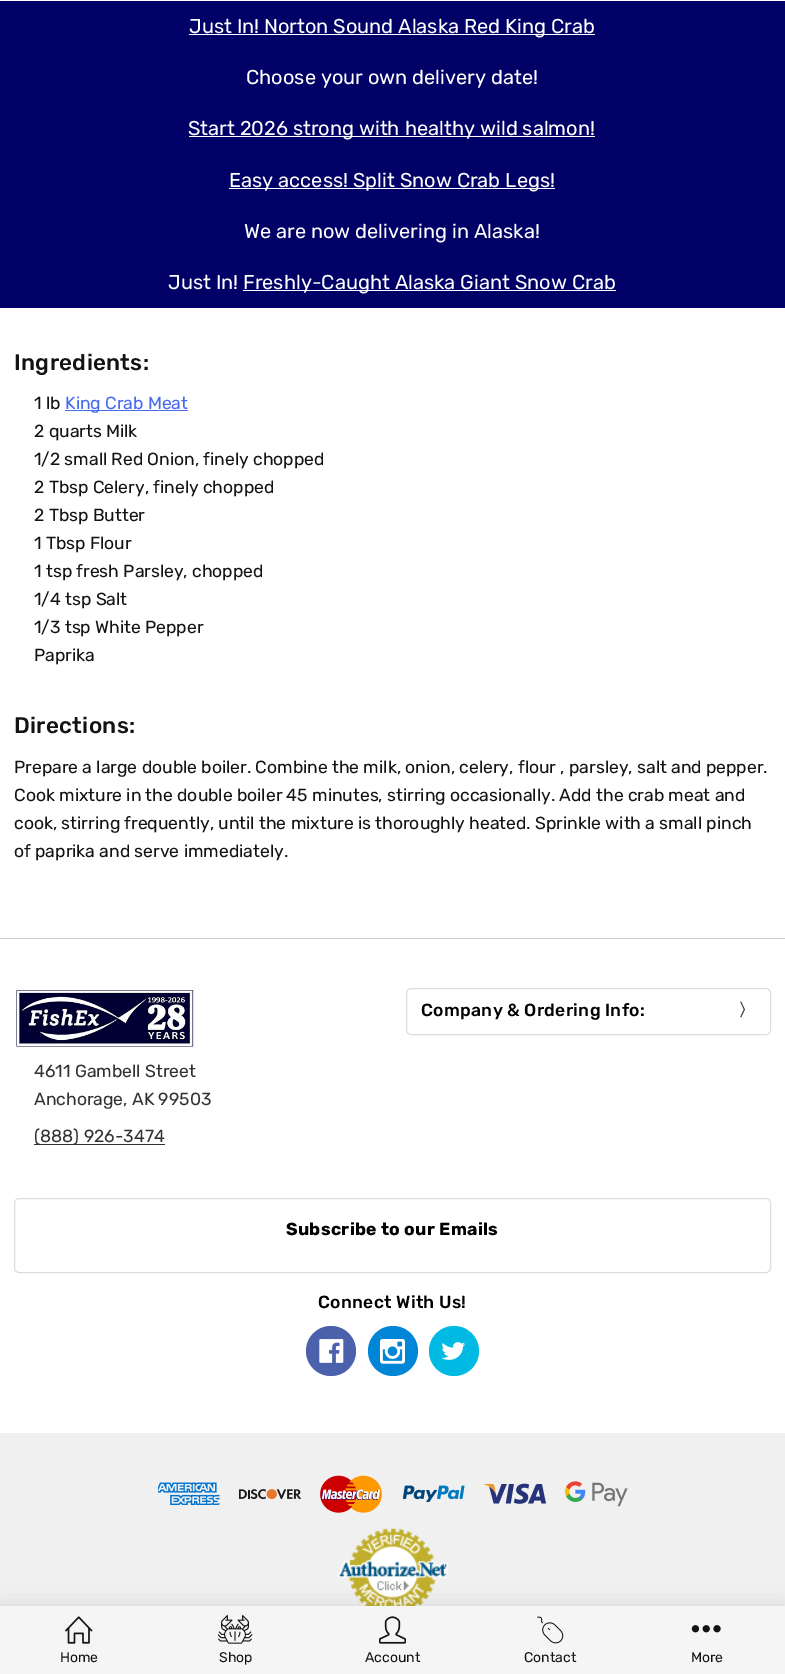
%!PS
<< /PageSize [785 1674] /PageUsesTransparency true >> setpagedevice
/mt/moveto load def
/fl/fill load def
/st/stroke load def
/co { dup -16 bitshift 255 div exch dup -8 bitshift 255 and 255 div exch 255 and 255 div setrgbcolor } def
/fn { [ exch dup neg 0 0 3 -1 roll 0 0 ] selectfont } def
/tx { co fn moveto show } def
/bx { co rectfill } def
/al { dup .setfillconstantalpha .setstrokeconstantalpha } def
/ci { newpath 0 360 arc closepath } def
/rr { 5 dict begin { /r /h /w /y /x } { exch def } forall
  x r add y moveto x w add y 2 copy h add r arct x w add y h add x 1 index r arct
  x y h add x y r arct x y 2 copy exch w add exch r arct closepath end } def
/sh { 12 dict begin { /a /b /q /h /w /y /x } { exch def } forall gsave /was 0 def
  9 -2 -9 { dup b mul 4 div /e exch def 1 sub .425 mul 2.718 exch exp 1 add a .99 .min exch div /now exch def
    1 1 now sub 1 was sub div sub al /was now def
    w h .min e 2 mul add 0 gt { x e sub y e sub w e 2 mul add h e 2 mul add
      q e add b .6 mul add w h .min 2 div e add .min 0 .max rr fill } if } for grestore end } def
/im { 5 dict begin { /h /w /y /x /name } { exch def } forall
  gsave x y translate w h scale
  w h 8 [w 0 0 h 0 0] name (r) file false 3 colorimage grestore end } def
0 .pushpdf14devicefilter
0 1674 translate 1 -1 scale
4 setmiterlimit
0 0 785 1674 16#FFFFFF bx
0 1 785 307 16#000066 bx
189 34 406 1 16#FFFFFF bx
189 136 406 1 16#FFFFFF bx
229 188 326 1 16#FFFFFF bx
243 290 373 1 16#FFFFFF bx
65 410 123 1 16#476BEF bx
0 938 785 1 16#CCCCCC bx
16#DDDDDD co
406.5 988.5 364 46 4.5 rr st
(media/1.raw) 14 987 182 62 im
34 1144 131 1 16#323232 bx
16#DDDDDD co
14.5 1198.5 756 74 4.5 rr st
16#4C61AC co
331 1351 25 ci fl
(media/2.raw) 319 1339 25 24 im
16#0085D7 co
393 1351 25 ci fl
(media/3.raw) 380 1339 25 25 im
16#00BAE3 co
454 1351 25 ci fl
(media/4.raw) 441 1342 25 18 im
0 1433 785 173 16#F0F0F0 bx
(media/5.raw) 158 1482 62 23 im
(media/6.raw) 239 1489 62 11 im
(media/7.raw) 320 1475 62 38 im
(media/8.raw) 403 1485 62 17 im
(media/9.raw) 484 1483 62 21 im
(media/10.raw) 565 1481 63 26 im
(media/11.raw) 337 1528 111 78 im
16#000000 co
0 1606 785 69 0 9.5 .1 sh
0 1606 785 68 16#F5F5F5 bx
(media/12.raw) 65 1616 28 28 im
(media/13.raw) 218 1615 35 29 im
(media/14.raw) 379 1616 27 28 im
(media/15.raw) 537 1616 27 28 im
(media/16.raw) 691 1625 30 8 im
(Just In! Norton Sound Alaska Red King Crab) 189 33 /Rubik-Regular 20 16#FFFFFF tx
(Choose your own delivery date!) 246 84 /Rubik-Regular 20 16#FFFFFF tx
(Start 2026 strong with healthy wild salmon!) 188 135 /Rubik-Regular 20 16#FFFFFF tx
(Easy access! Split Snow Crab Legs!) 229 187 /Rubik-Regular 20 16#FFFFFF tx
(We are now delivering in Alaska!) 244 238 /Rubik-Regular 20 16#FFFFFF tx
(Just In!) 168 289 /Rubik-Regular 20 16#FFFFFF tx
(Freshly-Caught Alaska Giant Snow Crab) 243 289 /Rubik-Regular 20 16#FFFFFF tx
/Rubik-Medium 22.5 fn
16#131313 co
14 370 mt .3 0 (Ingredients:) ashow
(1 lb) 34 409 /Rubik-Regular 17.5 16#131313 tx
(King Crab Meat) 65 409 /Rubik-Regular 17.5 16#476BEF tx
(2 quarts Milk) 34 437 /Rubik-Regular 17.5 16#131313 tx
(1/2 small Red Onion, finely chopped) 34 465 /Rubik-Regular 17.5 16#131313 tx
(2 Tbsp Celery, finely chopped) 34 493 /Rubik-Regular 17.5 16#131313 tx
(2 Tbsp Butter) 34 521 /Rubik-Regular 17.5 16#131313 tx
(1 Tbsp Flour) 34 549 /Rubik-Regular 17.5 16#131313 tx
(1 tsp fresh Parsley, chopped) 34 577 /Rubik-Regular 17.5 16#131313 tx
(1/4 tsp Salt) 34 605 /Rubik-Regular 17.5 16#131313 tx
(1/3 tsp White Pepper) 34 633 /Rubik-Regular 17.5 16#131313 tx
(Paprika) 34 661 /Rubik-Regular 17.5 16#131313 tx
/Rubik-Medium 22.5 fn
14 733 mt .3 0 (Directions:) ashow
(Prepare a large double boiler. Combine the milk, onion, celery, flour , parsley, salt and pepper.) 14 773 /Rubik-Regular 17.5 16#131313 tx
(Cook mixture in the double boiler 45 minutes, stirring occasionally. Add the crab meat and) 14 801 /Rubik-Regular 17.5 16#131313 tx
(cook, stirring frequently, until the mixture is thoroughly heated. Sprinkle with a small pinch) 14 829 /Rubik-Regular 17.5 16#131313 tx
(of paprika and serve immediately.) 14 857 /Rubik-Regular 17.5 16#131313 tx
/Rubik-Medium 17.5 fn
16#000000 co
421 1016 mt .3 0 (Company & Ordering Info:) ashow
/WenQuanYiZenHei-Bold 17.5 fn
16#323232 co
738 1016 mt .3 0 (〉) ashow
(4611 Gambell Street) 34 1077 /Rubik-Regular 17.5 16#323232 tx
(Anchorage, AK 99503) 34 1105 /Rubik-Regular 17.5 16#323232 tx
(\(888\) 926-3474) 34 1142 /Rubik-Regular 17.5 16#323232 tx
/Rubik-Bold 17.5 fn
16#000000 co
286 1235 mt .3 0 (Subscribe to our Emails) ashow
/Rubik-Medium 17.5 fn
318 1308 mt .3 0 (Connect With Us!) ashow
(Home) 60 1662 /Rubik-Regular 14 16#131313 tx
(Shop) 219 1662 /Rubik-Regular 14 16#131313 tx
(Account) 365 1662 /Rubik-Regular 14 16#131313 tx
(Contact) 524 1662 /Rubik-Regular 14 16#131313 tx
(More) 691 1662 /Rubik-Regular 14 16#131313 tx
.poppdf14devicefilter showpage
